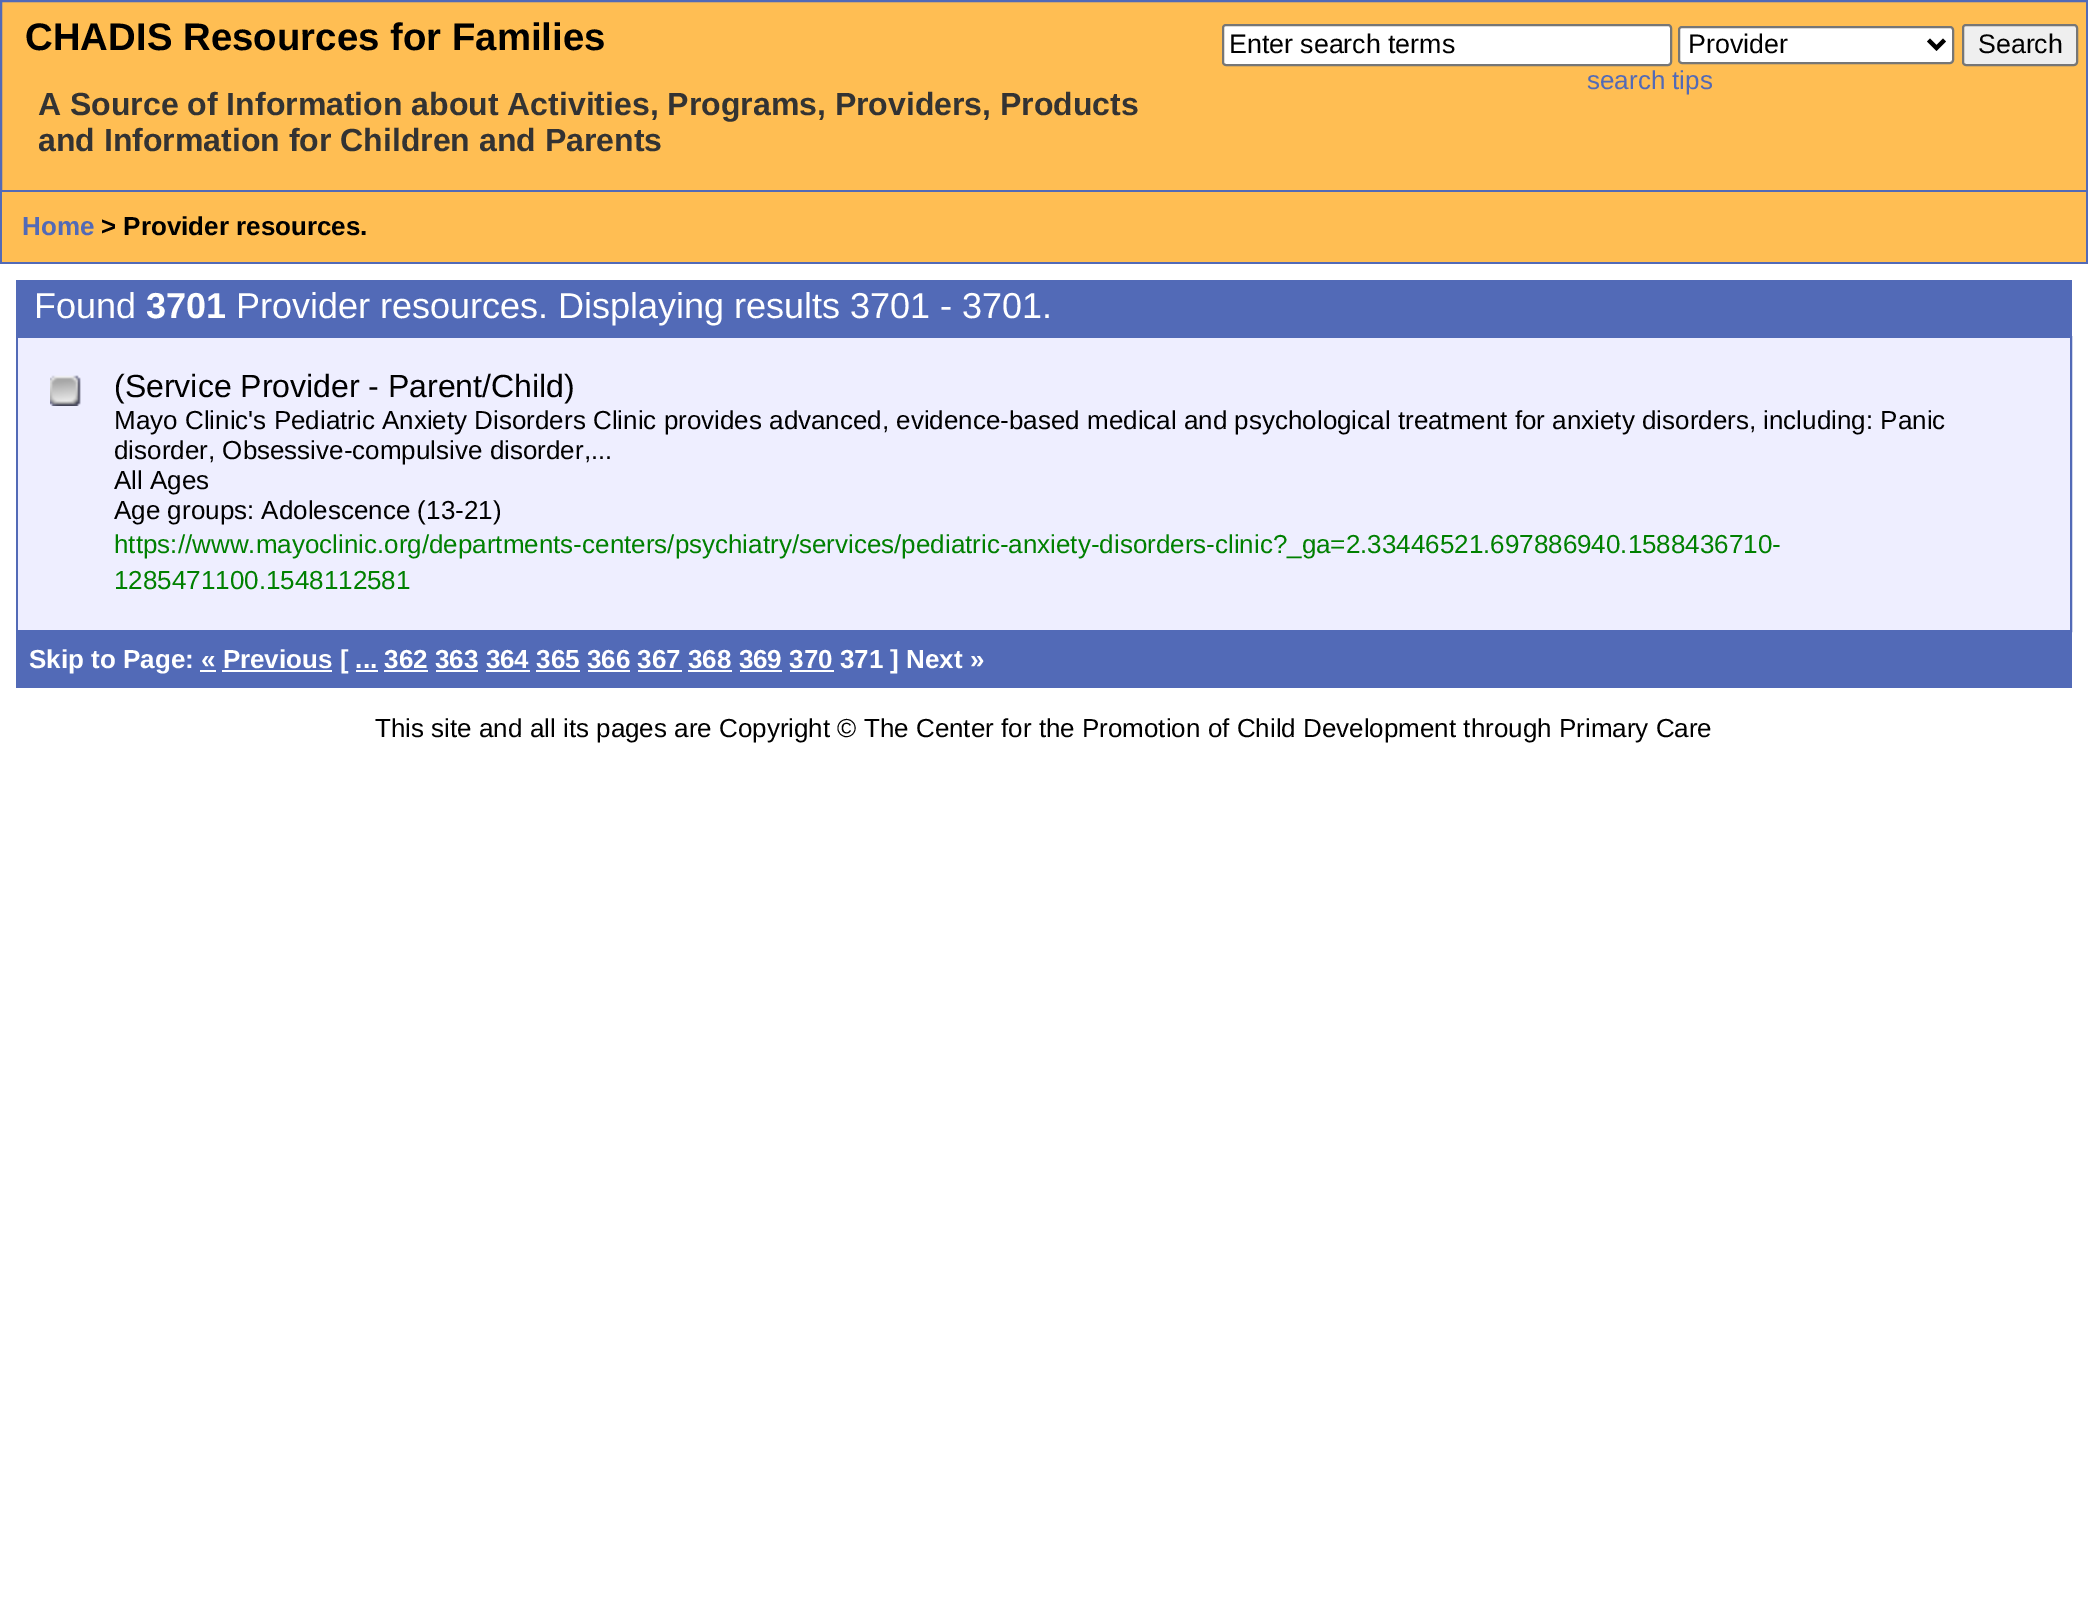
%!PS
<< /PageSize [2088 1622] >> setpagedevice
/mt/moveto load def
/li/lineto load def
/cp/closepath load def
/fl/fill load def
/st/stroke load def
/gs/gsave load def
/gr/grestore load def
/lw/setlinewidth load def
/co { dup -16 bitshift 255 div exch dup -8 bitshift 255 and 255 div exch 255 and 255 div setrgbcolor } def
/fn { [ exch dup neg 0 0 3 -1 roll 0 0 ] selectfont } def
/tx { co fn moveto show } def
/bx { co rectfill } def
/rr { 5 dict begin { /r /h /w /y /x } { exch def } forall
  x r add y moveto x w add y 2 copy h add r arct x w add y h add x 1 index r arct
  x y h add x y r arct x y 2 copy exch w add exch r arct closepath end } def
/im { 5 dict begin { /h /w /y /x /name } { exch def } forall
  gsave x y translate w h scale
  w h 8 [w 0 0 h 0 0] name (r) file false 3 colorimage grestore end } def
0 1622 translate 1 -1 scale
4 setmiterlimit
0 0 2088 1622 16#FFFFFF bx
16#FFBE53 co
1 1 mt 2087 1 li 2087 191 li 1 191 li cp gs fl gr
16#526AB7 co
2 lw
st
16#FFFFFF co
1223 25 448 40 3 rr gs fl gr
16#767676 co
st
16#FFFFFF co
1679 27 274 36 3 rr gs fl gr
16#767676 co
st
16#000000 co
4 lw
1928.5 40 mt 1936.5 48 li 1944.5 40 li st
16#EFEFEF co
1963 25 114 40 3 rr gs fl gr
16#767676 co
2 lw
st
2 192 2084 70 16#FFBE53 bx
2086 192 2 72 16#526AB7 bx
0 262 2088 2 16#526AB7 bx
0 192 2 72 16#526AB7 bx
16 280 2056 56 16#526AB7 bx
17 337 2054 294 rectstroke
18 338 2052 292 16#EEEEFF bx
(media/1.raw) 50 375 31 31 im
16 632 2056 56 16#526AB7 bx
200 670 16 2 16#FFFFFF bx
222 670 110 2 16#FFFFFF bx
356 670 22 2 16#FFFFFF bx
384 670 44 2 16#FFFFFF bx
436 670 42 2 16#FFFFFF bx
486 670 44 2 16#FFFFFF bx
536 670 44 2 16#FFFFFF bx
588 670 42 2 16#FFFFFF bx
638 670 44 2 16#FFFFFF bx
688 670 44 2 16#FFFFFF bx
740 670 42 2 16#FFFFFF bx
790 670 44 2 16#FFFFFF bx
(CHADIS Resources for Families) 25 50 /LiberationSans-Bold 38.4 16#000000 tx
(A Source of Information about Activities, Programs, Providers, Products) 38 115 /LiberationSans-Bold 32 16#333333 tx
(and Information for Children and Parents) 38 151 /LiberationSans-Bold 32 16#333333 tx
(Enter search terms) 1229 53 /LiberationSans-Regular 26.75 16#000000 tx
(Provider) 1688 53 /LiberationSans-Regular 26.75 16#000000 tx
(Search) 1978 53 /LiberationSans-Regular 26.75 16#000000 tx
(search tips) 1587 89 /LiberationSans-Regular 26 16#526AB7 tx
(Home) 22 235 /LiberationSans-Bold 26 16#526AB7 tx
(> Provider resources.) 101 235 /LiberationSans-Bold 26 16#000000 tx
(Found) 34 318 /LiberationSans-Regular 36 16#FFFFFF tx
(3701) 146 318 /LiberationSans-Bold 36 16#FFFFFF tx
(Provider resources. Displaying results 3701 - 3701.) 236 318 /LiberationSans-Regular 36 16#FFFFFF tx
(\(Service Provider - Parent/Child\)) 114 397 /LiberationSans-Regular 32 16#000000 tx
(Mayo Clinic's Pediatric Anxiety Disorders Clinic provides advanced, evidence-based medical and psychological treatment for anxiety disorders, including: Panic) 114 429 /LiberationSans-Regular 26 16#000000 tx
(disorder, Obsessive-compulsive disorder,...) 114 459 /LiberationSans-Regular 26 16#000000 tx
(All Ages) 114 489 /LiberationSans-Regular 26 16#000000 tx
(Age groups: Adolescence \(13-21\)) 114 519 /LiberationSans-Regular 26 16#000000 tx
(https://www.mayoclinic.org/departments-centers/psychiatry/services/pediatric-anxiety-disorders-clinic?_ga=2.33446521.697886940.1588436710-) 114 553 /LiberationSans-Regular 26 16#008000 tx
(1285471100.1548112581) 114 589 /LiberationSans-Regular 26 16#008000 tx
(Skip to Page: « Previous [ ... 362 363 364 365 366 367 368 369 370 371 ] Next ») 29 668 /LiberationSans-Bold 26 16#FFFFFF tx
(This site and all its pages are Copyright © The Center for the Promotion of Child Development through Primary Care) 375 737 /LiberationSans-Regular 26 16#000000 tx
showpage
